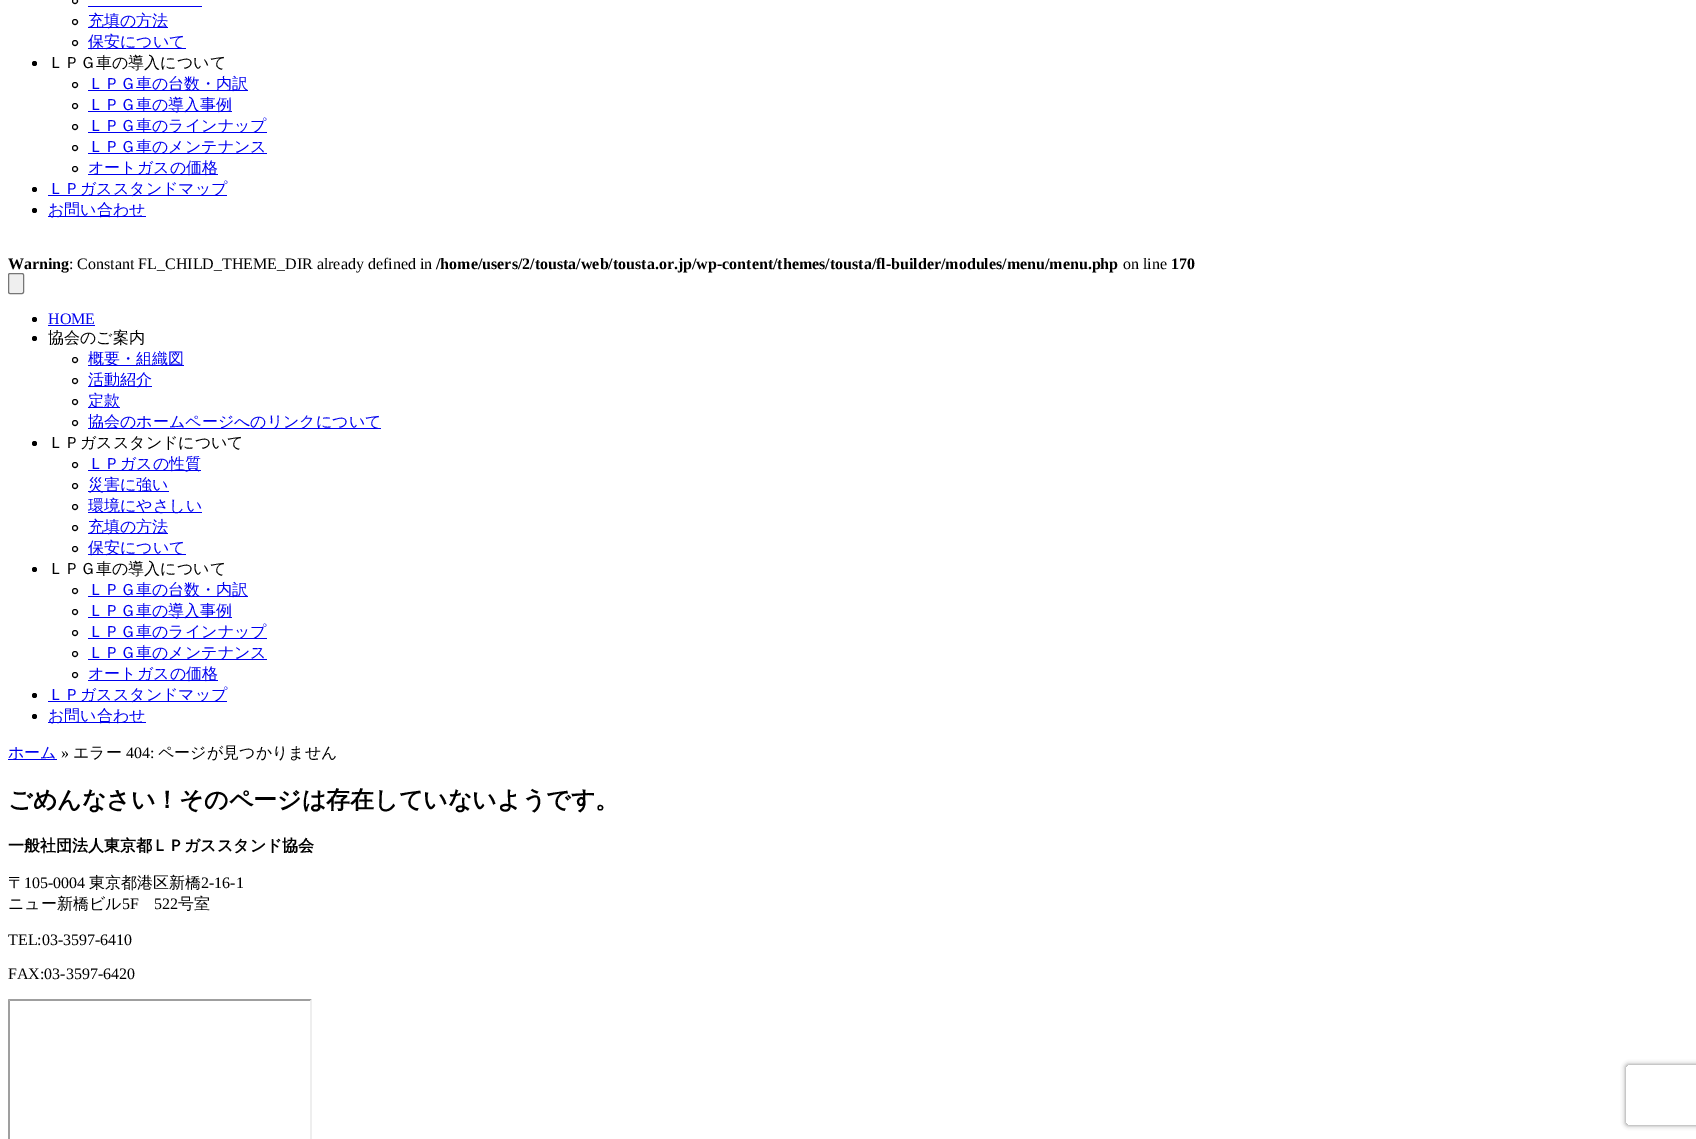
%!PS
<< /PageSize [1696 1139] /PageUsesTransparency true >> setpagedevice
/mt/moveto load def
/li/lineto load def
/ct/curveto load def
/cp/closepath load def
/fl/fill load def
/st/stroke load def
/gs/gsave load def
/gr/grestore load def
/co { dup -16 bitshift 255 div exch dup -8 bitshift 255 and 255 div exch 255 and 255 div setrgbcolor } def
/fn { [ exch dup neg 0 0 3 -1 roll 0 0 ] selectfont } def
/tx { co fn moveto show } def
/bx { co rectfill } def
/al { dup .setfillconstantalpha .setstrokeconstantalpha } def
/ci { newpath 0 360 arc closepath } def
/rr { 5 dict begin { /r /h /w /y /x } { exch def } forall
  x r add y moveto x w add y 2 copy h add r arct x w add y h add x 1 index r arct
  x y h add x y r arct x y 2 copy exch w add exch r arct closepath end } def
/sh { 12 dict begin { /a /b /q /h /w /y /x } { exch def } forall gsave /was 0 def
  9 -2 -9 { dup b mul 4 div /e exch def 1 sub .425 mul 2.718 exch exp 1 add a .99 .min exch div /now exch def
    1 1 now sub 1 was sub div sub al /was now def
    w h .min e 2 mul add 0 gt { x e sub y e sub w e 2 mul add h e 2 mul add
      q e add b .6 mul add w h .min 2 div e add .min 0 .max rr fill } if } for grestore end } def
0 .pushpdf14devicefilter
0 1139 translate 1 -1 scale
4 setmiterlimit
0 0 1696 1139 16#FFFFFF bx
16#000000 co
75 1 2.5 ci st
88 6 114 1 16#0000EE bx
16#000000 co
75 22 2.5 ci st
88 27 80 1 16#0000EE bx
16#000000 co
75 43 2.5 ci st
88 48 98 1 16#0000EE bx
16#000000 co
34.5 63.5 2.5 ci fl
75 85 2.5 ci st
88 90 160 1 16#0000EE bx
16#000000 co
75 106 2.5 ci st
88 111 144 1 16#0000EE bx
16#000000 co
75 127 2.5 ci st
88 132 179 1 16#0000EE bx
16#000000 co
75 148 2.5 ci st
88 153 179 1 16#0000EE bx
16#000000 co
75 169 2.5 ci st
88 174 130 1 16#0000EE bx
16#000000 co
34.5 189.5 2.5 ci fl
48 195 179 1 16#0000EE bx
16#000000 co
34.5 210.5 2.5 ci fl
48 216 98 1 16#0000EE bx
16#EFEFEF co
8.5 273.5 15 20 1.5 rr gs fl gr
16#767676 co
st
16#000000 co
34.5 319.5 2.5 ci fl
48 325 47 1 16#0000EE bx
16#000000 co
34.5 338.5 2.5 ci fl
75 360 2.5 ci st
88 365 96 1 16#0000EE bx
16#000000 co
75 381 2.5 ci st
88 386 64 1 16#0000EE bx
16#000000 co
75 402 2.5 ci st
88 407 32 1 16#0000EE bx
16#000000 co
75 423 2.5 ci st
88 428 293 1 16#0000EE bx
16#000000 co
34.5 443.5 2.5 ci fl
75 465 2.5 ci st
88 470 113 1 16#0000EE bx
16#000000 co
75 486 2.5 ci st
88 491 81 1 16#0000EE bx
16#000000 co
75 507 2.5 ci st
88 512 114 1 16#0000EE bx
16#000000 co
75 528 2.5 ci st
88 533 80 1 16#0000EE bx
16#000000 co
75 549 2.5 ci st
88 554 98 1 16#0000EE bx
16#000000 co
34.5 569.5 2.5 ci fl
75 591 2.5 ci st
88 596 160 1 16#0000EE bx
16#000000 co
75 612 2.5 ci st
88 617 144 1 16#0000EE bx
16#000000 co
75 633 2.5 ci st
88 638 179 1 16#0000EE bx
16#000000 co
75 654 2.5 ci st
88 659 179 1 16#0000EE bx
16#000000 co
75 675 2.5 ci st
88 680 130 1 16#0000EE bx
16#000000 co
34.5 695.5 2.5 ci fl
48 701 179 1 16#0000EE bx
16#000000 co
34.5 716.5 2.5 ci fl
48 722 98 1 16#0000EE bx
8 759 49 1 16#0000EE bx
16#9F9F9F co
8 999 mt 312 999 li 310 1001 li 10 1001 li cp fl
8 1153 mt 8 999 li 10 1001 li 10 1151 li cp fl
16#EEEEEE co
312 999 mt 312 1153 li 310 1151 li 310 1001 li cp fl
gs
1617 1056 mt 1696 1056 li 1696 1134 li 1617 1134 li cp 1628 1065 mt 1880 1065 li 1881 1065 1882 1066 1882 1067 ct 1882 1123 li 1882 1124 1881 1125 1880 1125 ct 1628 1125 li 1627 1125 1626 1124 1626 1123 ct 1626 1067 li 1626 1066 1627 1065 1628 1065 ct cp eoclip newpath
16#808080 co
1626 1065 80 60 2 2.5 1 sh
gr
(充填の方法) 88 26 /WenQuanYiZenHei-Medium 16 16#0000EE tx
(保安について) 88 47 /WenQuanYiZenHei-Medium 16 16#0000EE tx
(ＬＰＧ車の導入について) 48 68 /WenQuanYiZenHei-Medium 16 16#000000 tx
(ＬＰＧ車の台数・内訳) 88 89 /WenQuanYiZenHei-Medium 16 16#0000EE tx
(ＬＰＧ車の導入事例) 88 110 /WenQuanYiZenHei-Medium 16 16#0000EE tx
(ＬＰＧ車のラインナップ) 88 131 /WenQuanYiZenHei-Medium 16 16#0000EE tx
(ＬＰＧ車のメンテナンス) 88 152 /WenQuanYiZenHei-Medium 16 16#0000EE tx
(オートガスの価格) 88 173 /WenQuanYiZenHei-Medium 16 16#0000EE tx
(ＬＰガススタンドマップ) 48 194 /WenQuanYiZenHei-Medium 16 16#0000EE tx
(お問い合わせ) 48 215 /WenQuanYiZenHei-Medium 16 16#0000EE tx
(Warning) 8 269 /LiberationSerif-Bold 16 16#000000 tx
(: Constant FL_CHILD_THEME_DIR already defined in) 69 269 /LiberationSerif-Regular 16 16#000000 tx
(/home/users/2/tousta/web/tousta.or.jp/wp-content/themes/tousta/fl-builder/modules/menu/menu.php) 436 269 /LiberationSerif-Bold 16 16#000000 tx
(on line) 1123 269 /LiberationSerif-Regular 16 16#000000 tx
(170) 1171 269 /LiberationSerif-Bold 16 16#000000 tx
(HOME) 48 324 /LiberationSerif-Regular 16 16#0000EE tx
(協会のご案内) 48 343 /WenQuanYiZenHei-Medium 16 16#000000 tx
(概要・組織図) 88 364 /WenQuanYiZenHei-Medium 16 16#0000EE tx
(活動紹介) 88 385 /WenQuanYiZenHei-Medium 16 16#0000EE tx
(定款) 88 406 /WenQuanYiZenHei-Medium 16 16#0000EE tx
(協会のホームページへのリンクについて) 88 427 /WenQuanYiZenHei-Medium 16 16#0000EE tx
(ＬＰガススタンドについて) 48 448 /WenQuanYiZenHei-Medium 16 16#000000 tx
(ＬＰガスの性質) 88 469 /WenQuanYiZenHei-Medium 16 16#0000EE tx
(災害に強い) 88 490 /WenQuanYiZenHei-Medium 16 16#0000EE tx
(環境にやさしい) 88 511 /WenQuanYiZenHei-Medium 16 16#0000EE tx
(充填の方法) 88 532 /WenQuanYiZenHei-Medium 16 16#0000EE tx
(保安について) 88 553 /WenQuanYiZenHei-Medium 16 16#0000EE tx
(ＬＰＧ車の導入について) 48 574 /WenQuanYiZenHei-Medium 16 16#000000 tx
(ＬＰＧ車の台数・内訳) 88 595 /WenQuanYiZenHei-Medium 16 16#0000EE tx
(ＬＰＧ車の導入事例) 88 616 /WenQuanYiZenHei-Medium 16 16#0000EE tx
(ＬＰＧ車のラインナップ) 88 637 /WenQuanYiZenHei-Medium 16 16#0000EE tx
(ＬＰＧ車のメンテナンス) 88 658 /WenQuanYiZenHei-Medium 16 16#0000EE tx
(オートガスの価格) 88 679 /WenQuanYiZenHei-Medium 16 16#0000EE tx
(ＬＰガススタンドマップ) 48 700 /WenQuanYiZenHei-Medium 16 16#0000EE tx
(お問い合わせ) 48 721 /WenQuanYiZenHei-Medium 16 16#0000EE tx
(ホーム) 8 758 /WenQuanYiZenHei-Medium 16 16#0000EE tx
(») 61 758 /LiberationSerif-Regular 16 16#000000 tx
(エラー) 73 758 /WenQuanYiZenHei-Medium 16 16#000000 tx
(404:) 126 758 /LiberationSerif-Regular 16 16#000000 tx
(ページが見つかりません) 158 758 /WenQuanYiZenHei-Medium 16 16#000000 tx
(ごめんなさい！そのページは存在していないようです。) 8 808 /WenQuanYiZenHei-Bold 24 16#000000 tx
(一般社団法人東京都ＬＰガススタンド協会) 8 851 /WenQuanYiZenHei-Bold 16 16#000000 tx
(〒) 8 888 /WenQuanYiZenHei-Medium 16 16#000000 tx
(105-0004) 24 888 /LiberationSerif-Regular 16 16#000000 tx
(東京都港区新橋) 89 888 /WenQuanYiZenHei-Medium 16 16#000000 tx
(2-16-1) 201 888 /LiberationSerif-Regular 16 16#000000 tx
(ニュー新橋ビル) 8 909 /WenQuanYiZenHei-Medium 16 16#000000 tx
(5F) 122 909 /LiberationSerif-Regular 16 16#000000 tx
(522) 154 909 /LiberationSerif-Regular 16 16#000000 tx
(号室) 178 909 /WenQuanYiZenHei-Medium 16 16#000000 tx
(TEL:03-3597-6410) 8 945 /LiberationSerif-Regular 16 16#000000 tx
(FAX:03-3597-6420) 8 979 /LiberationSerif-Regular 16 16#000000 tx
.poppdf14devicefilter showpage
